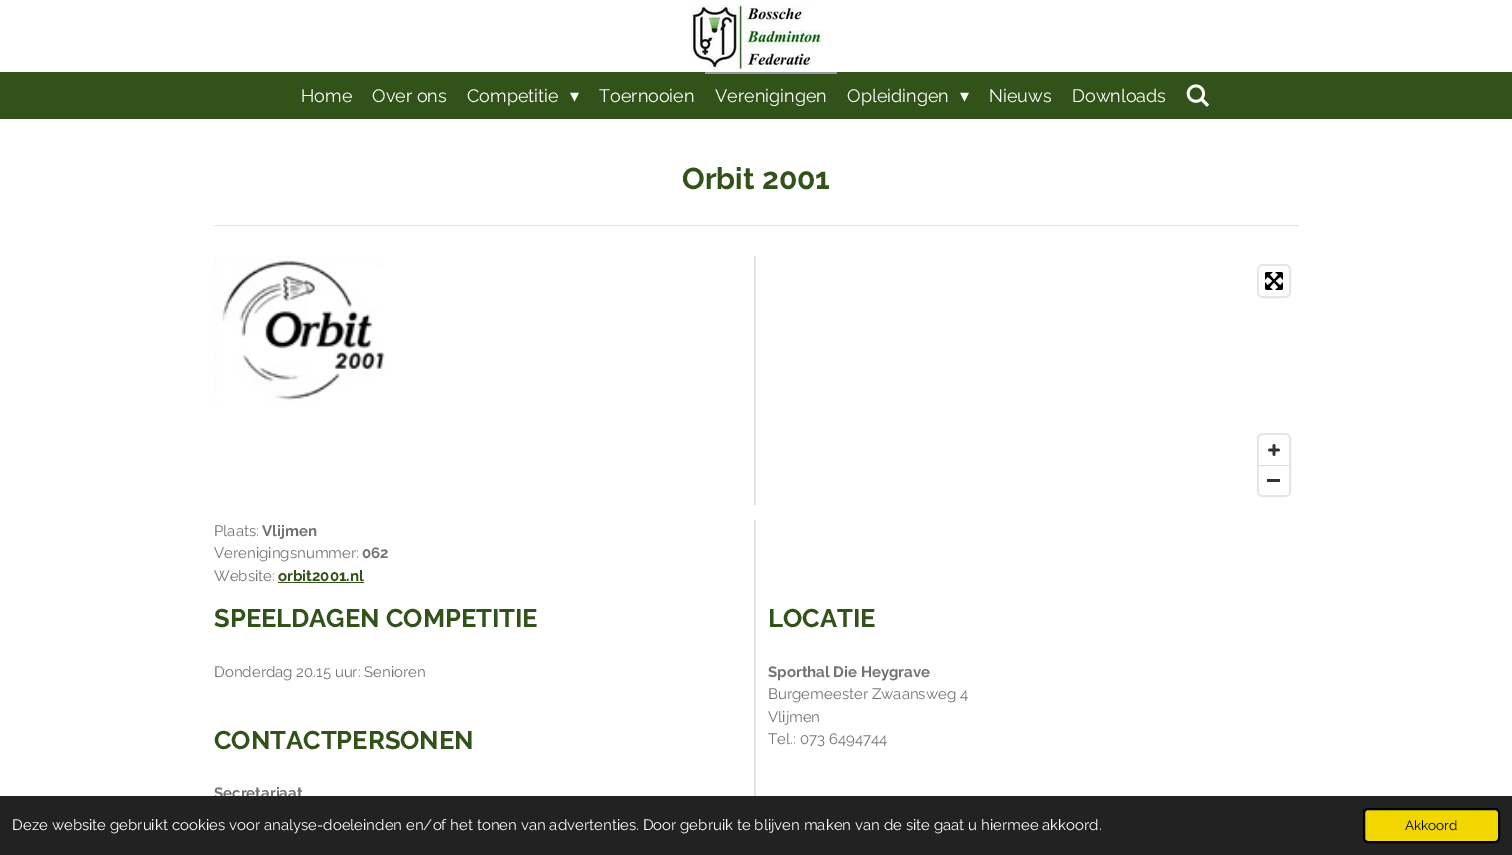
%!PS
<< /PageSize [1512 855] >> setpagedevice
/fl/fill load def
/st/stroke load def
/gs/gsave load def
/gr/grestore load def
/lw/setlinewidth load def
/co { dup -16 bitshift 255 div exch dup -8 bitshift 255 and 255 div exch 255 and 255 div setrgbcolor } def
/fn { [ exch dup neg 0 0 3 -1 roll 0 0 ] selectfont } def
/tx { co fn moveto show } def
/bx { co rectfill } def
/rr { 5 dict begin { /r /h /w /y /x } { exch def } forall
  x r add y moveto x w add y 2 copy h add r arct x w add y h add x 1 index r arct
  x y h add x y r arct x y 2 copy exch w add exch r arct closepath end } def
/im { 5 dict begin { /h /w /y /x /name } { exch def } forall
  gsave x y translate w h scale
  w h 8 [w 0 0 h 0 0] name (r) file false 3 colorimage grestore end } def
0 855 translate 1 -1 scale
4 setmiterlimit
0 0 1512 855 16#FFFFFF bx
(media/1.raw) 689 4 136 68 im
0 72 1512 47 16#315219 bx
705 72 132 2 16#999999 bx
(media/2.raw) 1186 84 24 23 im
214 225 1085 1 16#E3E3E3 bx
754 256 2 249 16#E3E3E3 bx
(media/3.raw) 214 256 171 149 im
16#E6E6E6 co
2 lw
1258 265 32 32 5 rr st
16#FFFFFF co
1259 266 30 30 4 rr fl
(media/4.raw) 1265 272 18 18 im
16#E6E6E6 co
1258 434 32 62 5 rr st
16#FFFFFF co
1259 435 30 60 4 rr fl
(media/5.raw) 1268 444 12 12 im
1267 479 13 3 16#333333 bx
1259 465 30 1 16#DDDDDD bx
754 520 2 276 16#E3E3E3 bx
278 582 86 1 16#315219 bx
(Home) 301 102 /Raleway-Regular 18 16#FFFFFF tx
(Over ons) 372 102 /Raleway-Regular 18 16#FFFFFF tx
(Competitie) 467 102 /Raleway-Regular 18 16#FFFFFF tx
(▾) 570 102 /DejaVuSans-Regular 18 16#FFFFFF tx
(Toernooien) 599 102 /Raleway-Regular 18 16#FFFFFF tx
(Verenigingen) 715 102 /Raleway-Regular 18 16#FFFFFF tx
(Opleidingen) 847 102 /Raleway-Regular 18 16#FFFFFF tx
(▾) 960 102 /DejaVuSans-Regular 18 16#FFFFFF tx
(Nieuws) 989 102 /Raleway-Regular 18 16#FFFFFF tx
(Downloads) 1072 102 /Raleway-Regular 18 16#FFFFFF tx
(Orbit 2001) 682 189 /Raleway-Bold 30 16#315219 tx
(Plaats:) 214 536 /Raleway-Regular 15 16#737373 tx
(Vlijmen) 262 536 /Raleway-Bold 15 16#737373 tx
(Verenigingsnummer:) 214 558 /Raleway-Regular 15 16#737373 tx
(062) 362 558 /Raleway-Bold 15 16#737373 tx
(Website:) 214 581 /Raleway-Regular 15 16#737373 tx
(orbit2001.nl) 278 581 /Raleway-Bold 15 16#315219 tx
(SPEELDAGEN COMPETITIE) 214 627 /Raleway-Bold 25.5 16#315219 tx
(Donderdag 20.15 uur: Senioren) 214 677 /Raleway-Regular 15 16#737373 tx
(CONTACTPERSONEN) 214 749 /Raleway-Bold 25.5 16#315219 tx
(Secretariaat) 214 798 /Raleway-Bold 15 16#737373 tx
(LOCATIE) 768 627 /Raleway-Bold 25.5 16#315219 tx
(Sporthal Die Heygrave) 768 677 /Raleway-Bold 15 16#737373 tx
(Burgemeester Zwaansweg 4) 768 699 /Raleway-Regular 15 16#737373 tx
(Vlijmen) 768 722 /Raleway-Regular 15 16#737373 tx
(Tel.: 073 6494744) 768 744 /Raleway-Regular 15 16#737373 tx
0 796 1512 59 16#222222 bx
(Deze website gebruikt cookies voor analyse-doeleinden en/of het tonen van advertenties. Door gebruik te blijven maken van de site gaat u hiermee akkoord.) 12 830 /Raleway-Regular 15 16#FFFFFF tx
16#F1D600 co
1364 809 135 33 4 rr gs fl gr
16#000000 co
st
(Akkoord) 1405 830 /Raleway-Regular 13.5 16#000000 tx
showpage
